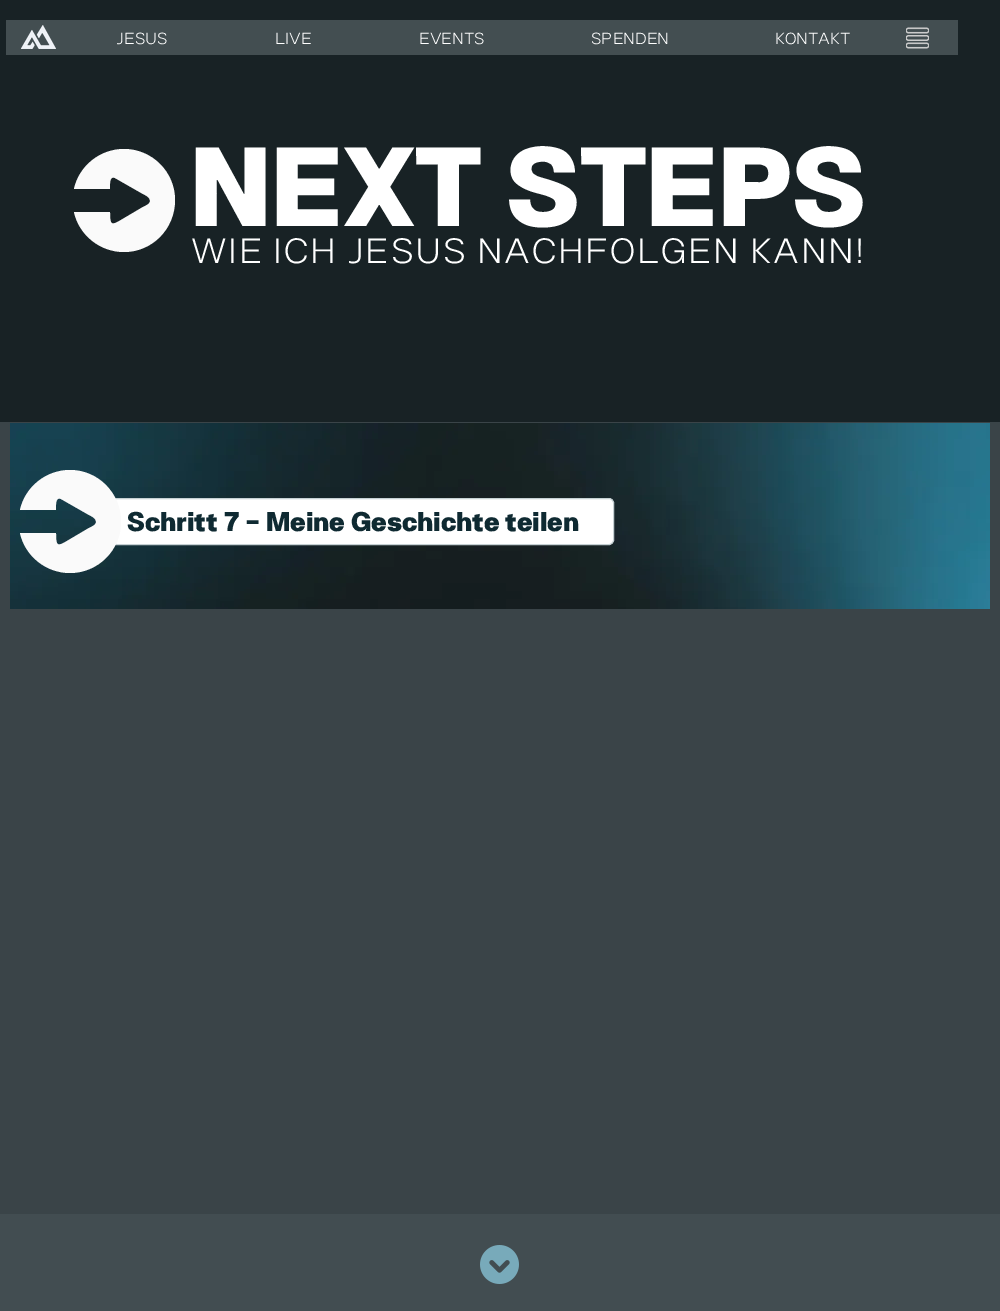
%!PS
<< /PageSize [1000 1311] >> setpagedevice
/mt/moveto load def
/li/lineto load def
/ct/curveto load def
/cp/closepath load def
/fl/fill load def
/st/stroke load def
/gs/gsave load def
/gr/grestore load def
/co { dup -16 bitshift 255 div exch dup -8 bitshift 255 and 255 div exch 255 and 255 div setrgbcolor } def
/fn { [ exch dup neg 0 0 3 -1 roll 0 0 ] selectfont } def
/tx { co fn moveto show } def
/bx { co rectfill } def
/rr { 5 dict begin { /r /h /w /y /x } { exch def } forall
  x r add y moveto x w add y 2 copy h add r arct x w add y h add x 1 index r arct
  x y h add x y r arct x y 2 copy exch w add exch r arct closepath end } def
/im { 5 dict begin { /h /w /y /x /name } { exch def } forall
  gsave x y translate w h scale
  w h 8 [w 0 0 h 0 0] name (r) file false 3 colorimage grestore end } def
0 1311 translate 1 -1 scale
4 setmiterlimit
0 0 1000 1311 16#182225 bx
6 20 952 35 16#434E51 bx
(media/1.raw) 21 25 35 24 im
(media/2.raw) 906 27 23 22 im
16#FAFAFA co
124 149 mt 100 149 79 166 74 189 ct 110 189 li 110 186 109 175 115 178 ct 143 194 li 145 195 150 197 150 201 ct 150 204 145 206 143 207 ct 121 220 li 111 226 110 225 110 212 ct 74 212 li 79 235 100 252 124 252 ct 152 252 175 229 175 200 ct 175 172 152 149 124 149 ct cp fl
0 422 1000 792 16#3A4448 bx
(media/3.raw) 10 423 980 186 im
16#FFFFFF co
112.5 498.5 501 46 4.5 rr gs fl gr
16#C5D0D3 co
st
16#FAFAFA co
70 470 mt 46 470 25 487 20 510 ct 56 510 li 56 507 55 496 61 499 ct 89 515 li 91 516 96 518 96 522 ct 96 525 91 527 89 528 ct 67 541 li 57 547 56 546 56 533 ct 20 533 li 25 556 46 573 70 573 ct 98 573 121 550 121 522 ct 121 493 98 470 70 470 ct cp fl
0 1214 1000 97 16#424D51 bx
(media/4.raw) 480 1245 39 39 im
(JESUS) 116 44 /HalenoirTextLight-Light 16 16#FFFFFF tx
(LIVE) 275 44 /HalenoirTextLight-Light 16 16#FFFFFF tx
(EVENTS) 419 44 /HalenoirTextLight-Light 16 16#FFFFFF tx
(SPENDEN) 591 44 /HalenoirTextLight-Light 16 16#FFFFFF tx
(KONTAKT) 775 44 /HalenoirTextLight-Light 16 16#FFFFFF tx
(NEXT STEPS) 190 226 /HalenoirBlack-Black 112 16#FFFFFF tx
/HalenoirTextLight-Light 35 fn
191 263 mt 1.75 0 (WIE ICH JESUS NACHFOLGEN KANN!) ashow
(Schritt 7 – Meine Geschichte teilen) 127 531 /HalenoirBlack-Black 27 16#0F2A32 tx
showpage
